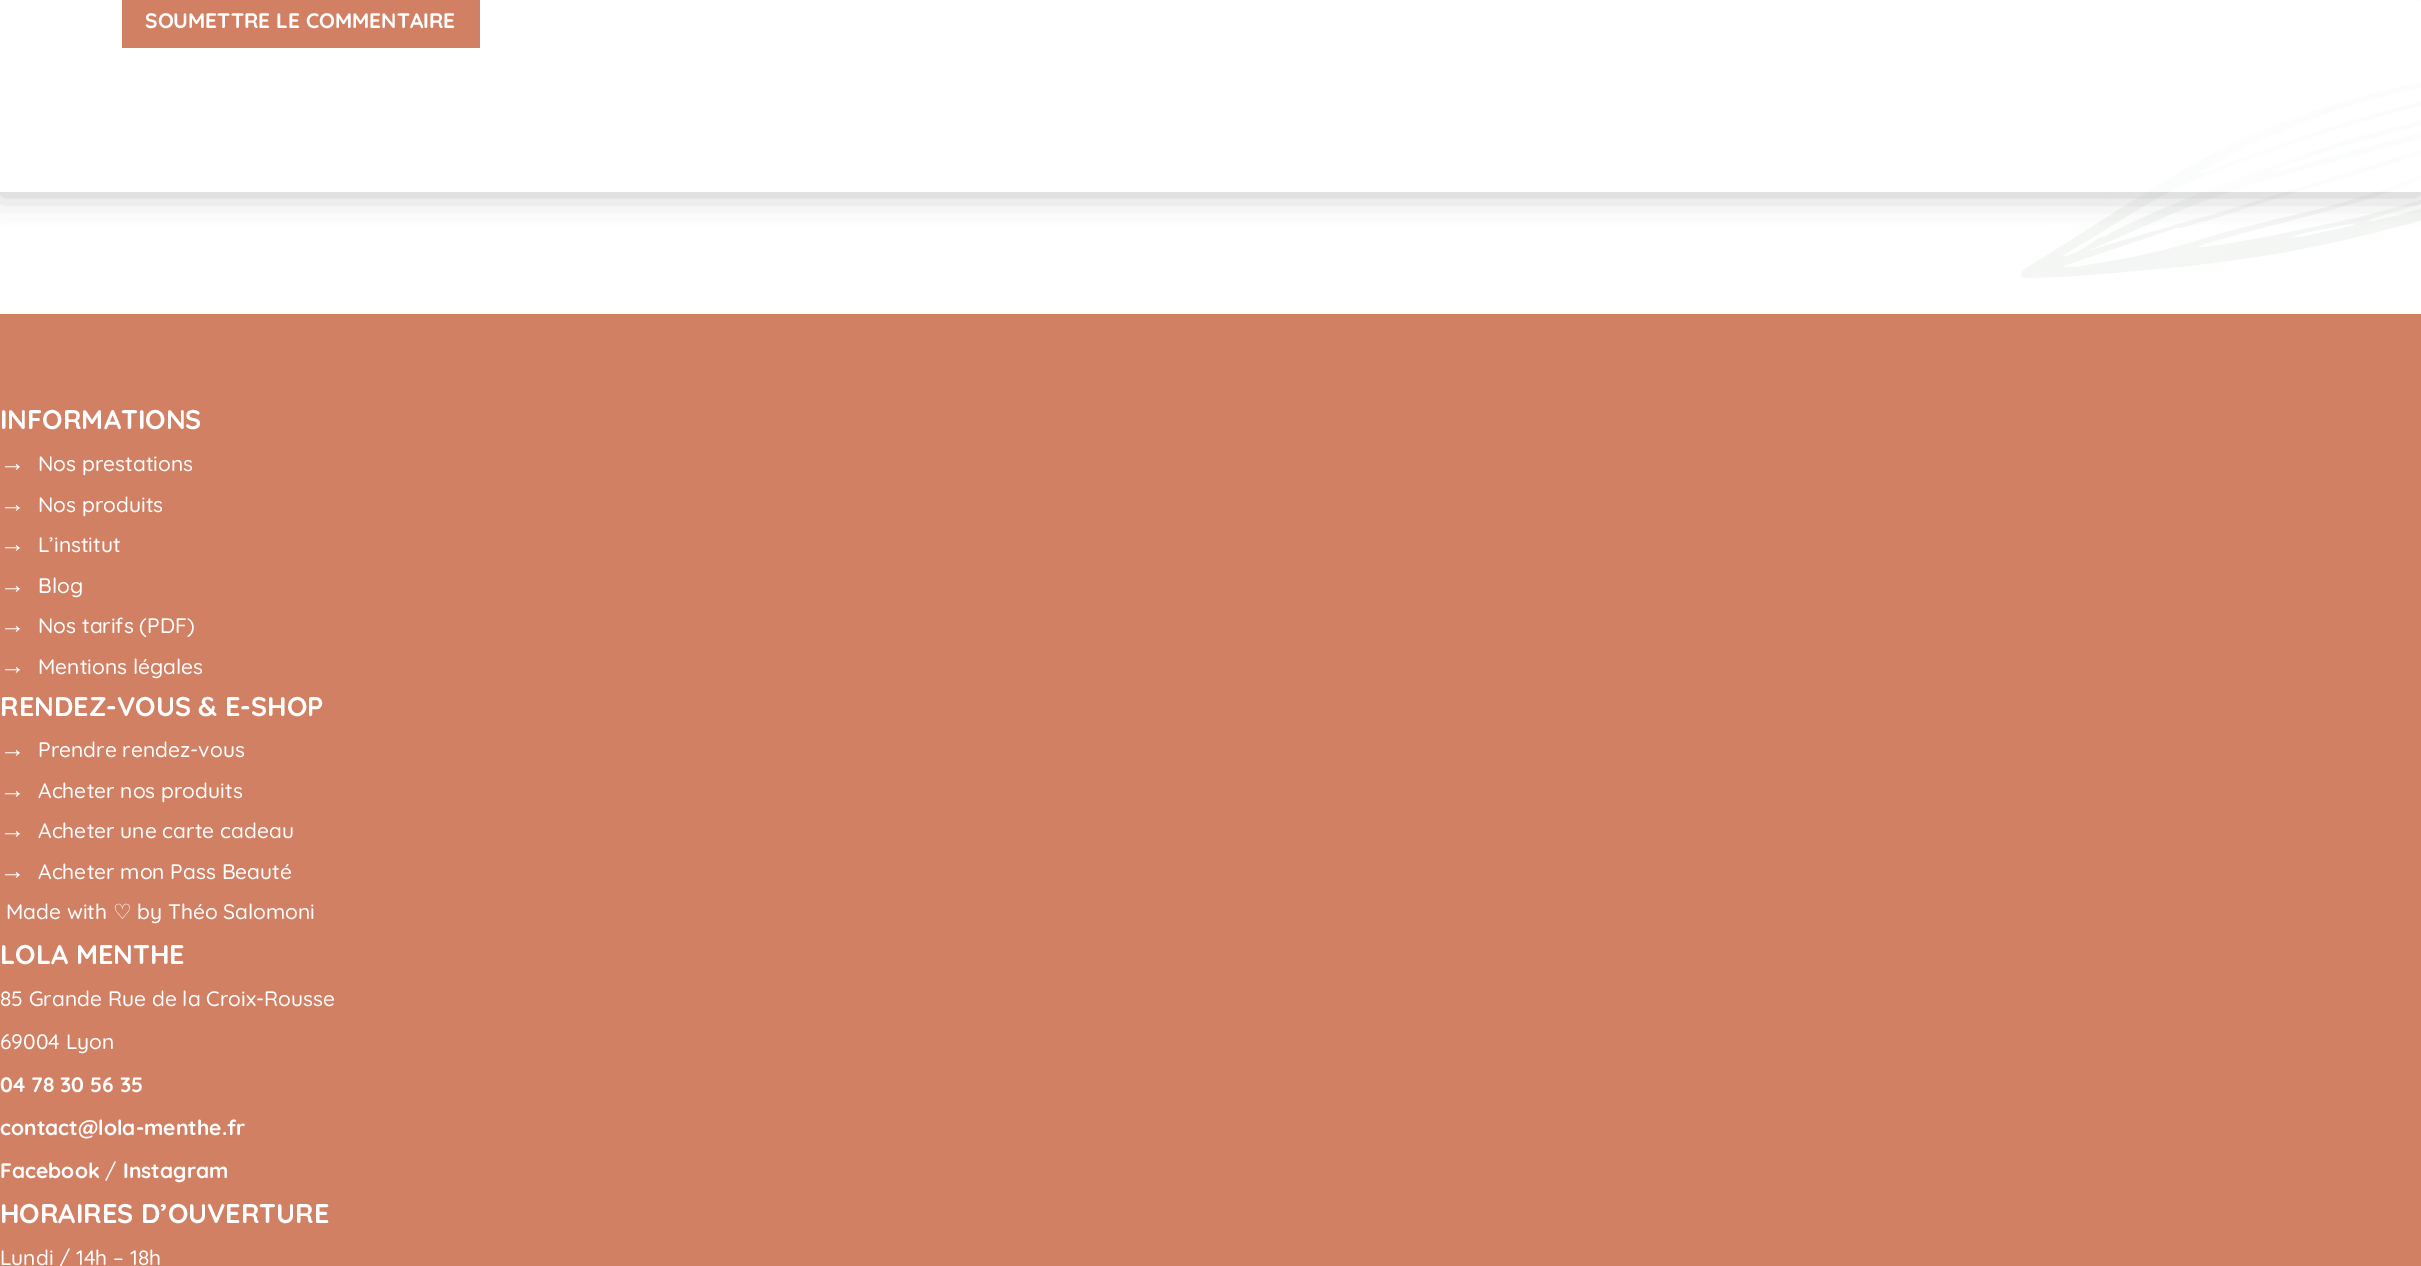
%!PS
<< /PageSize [2421 1266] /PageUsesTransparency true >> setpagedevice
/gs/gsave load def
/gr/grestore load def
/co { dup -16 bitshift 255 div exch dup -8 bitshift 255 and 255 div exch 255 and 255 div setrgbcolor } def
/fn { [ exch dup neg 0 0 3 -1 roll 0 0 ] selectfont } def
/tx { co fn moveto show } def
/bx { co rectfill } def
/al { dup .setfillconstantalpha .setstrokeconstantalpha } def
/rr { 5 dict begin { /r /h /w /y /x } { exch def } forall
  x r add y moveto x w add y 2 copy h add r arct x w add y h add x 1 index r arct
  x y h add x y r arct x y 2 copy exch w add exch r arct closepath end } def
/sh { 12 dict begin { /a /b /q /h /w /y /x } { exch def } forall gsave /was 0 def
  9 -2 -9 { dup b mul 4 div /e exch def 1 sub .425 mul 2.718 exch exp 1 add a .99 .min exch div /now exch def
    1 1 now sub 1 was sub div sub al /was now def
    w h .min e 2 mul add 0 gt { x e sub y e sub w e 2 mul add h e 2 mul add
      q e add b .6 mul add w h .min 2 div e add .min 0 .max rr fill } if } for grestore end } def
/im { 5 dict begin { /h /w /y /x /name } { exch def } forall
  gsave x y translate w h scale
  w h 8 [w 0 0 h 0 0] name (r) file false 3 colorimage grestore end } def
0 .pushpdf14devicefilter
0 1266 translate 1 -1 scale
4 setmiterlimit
0 0 2421 1266 16#FFFFFF bx
(media/1.raw) 2021 0 400 278 im
gs
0 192 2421 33 rectclip
16#B7B7B7 co
0 -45 2421 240 0 15 .82 sh
gr
0.69 al
2147 0 274 192 16#FFFFFF bx
1 al
122 0 358 48 16#D18064 bx
0 314 2421 952 16#D18064 bx
(SOUMETTRE LE COMMENTAIRE) 145 28 /Quicksand-Bold 21 16#FFFFFF tx
(INFORMATIONS) 0 429 /Quicksand-Bold 27 16#FFFFFF tx
(→) 0 471 /LiberationSans-Regular 25 16#FFFFFF tx
(Nos prestations) 38 471 /Quicksand-Medium 21 16#FFFFFF tx
(→) 0 512 /LiberationSans-Regular 25 16#FFFFFF tx
(Nos produits) 38 512 /Quicksand-Medium 21 16#FFFFFF tx
(→) 0 552 /LiberationSans-Regular 25 16#FFFFFF tx
(L’institut) 38 552 /Quicksand-Medium 21 16#FFFFFF tx
(→) 0 593 /LiberationSans-Regular 25 16#FFFFFF tx
(Blog) 38 593 /Quicksand-Medium 21 16#FFFFFF tx
(→) 0 633 /LiberationSans-Regular 25 16#FFFFFF tx
(Nos tarifs \(PDF\)) 38 633 /Quicksand-Medium 21 16#FFFFFF tx
(→) 0 674 /LiberationSans-Regular 25 16#FFFFFF tx
(Mentions légales) 38 674 /Quicksand-Medium 21 16#FFFFFF tx
(RENDEZ-VOUS & E-SHOP) 0 716 /Quicksand-Bold 27 16#FFFFFF tx
(→) 0 757 /LiberationSans-Regular 25 16#FFFFFF tx
(Prendre rendez-vous) 38 757 /Quicksand-Medium 21 16#FFFFFF tx
(→) 0 798 /LiberationSans-Regular 25 16#FFFFFF tx
(Acheter nos produits) 38 798 /Quicksand-Medium 21 16#FFFFFF tx
(→) 0 838 /LiberationSans-Regular 25 16#FFFFFF tx
(Acheter une carte cadeau) 38 838 /Quicksand-Medium 21 16#FFFFFF tx
(→) 0 879 /LiberationSans-Regular 25 16#FFFFFF tx
(Acheter mon Pass Beauté) 38 879 /Quicksand-Medium 21 16#FFFFFF tx
(Made with) 6 919 /Quicksand-Medium 21 16#FFFFFF tx
(♡) 113 919 /DejaVuSans-Regular 21 16#FFFFFF tx
(by Théo Salomoni) 137 919 /Quicksand-Medium 21 16#FFFFFF tx
(LOLA MENTHE) 0 964 /Quicksand-Bold 27 16#FFFFFF tx
(85 Grande Rue de la Croix-Rousse) 0 1006 /Quicksand-Medium 21 16#FFFFFF tx
(69004 Lyon) 0 1049 /Quicksand-Medium 21 16#FFFFFF tx
(04 78 30 56 35) 0 1092 /Quicksand-Bold 21 16#FFFFFF tx
(contact@lola-menthe.fr) 0 1135 /Quicksand-Bold 21 16#FFFFFF tx
(Facebook) 0 1178 /Quicksand-Bold 21 16#FFFFFF tx
(/) 105 1178 /Quicksand-Medium 21 16#FFFFFF tx
(Instagram) 123 1178 /Quicksand-Bold 21 16#FFFFFF tx
(HORAIRES D’OUVERTURE) 0 1223 /Quicksand-Bold 27 16#FFFFFF tx
(Lundi / 14h – 18h) 0 1265 /Quicksand-Medium 21 16#FFFFFF tx
.poppdf14devicefilter showpage
